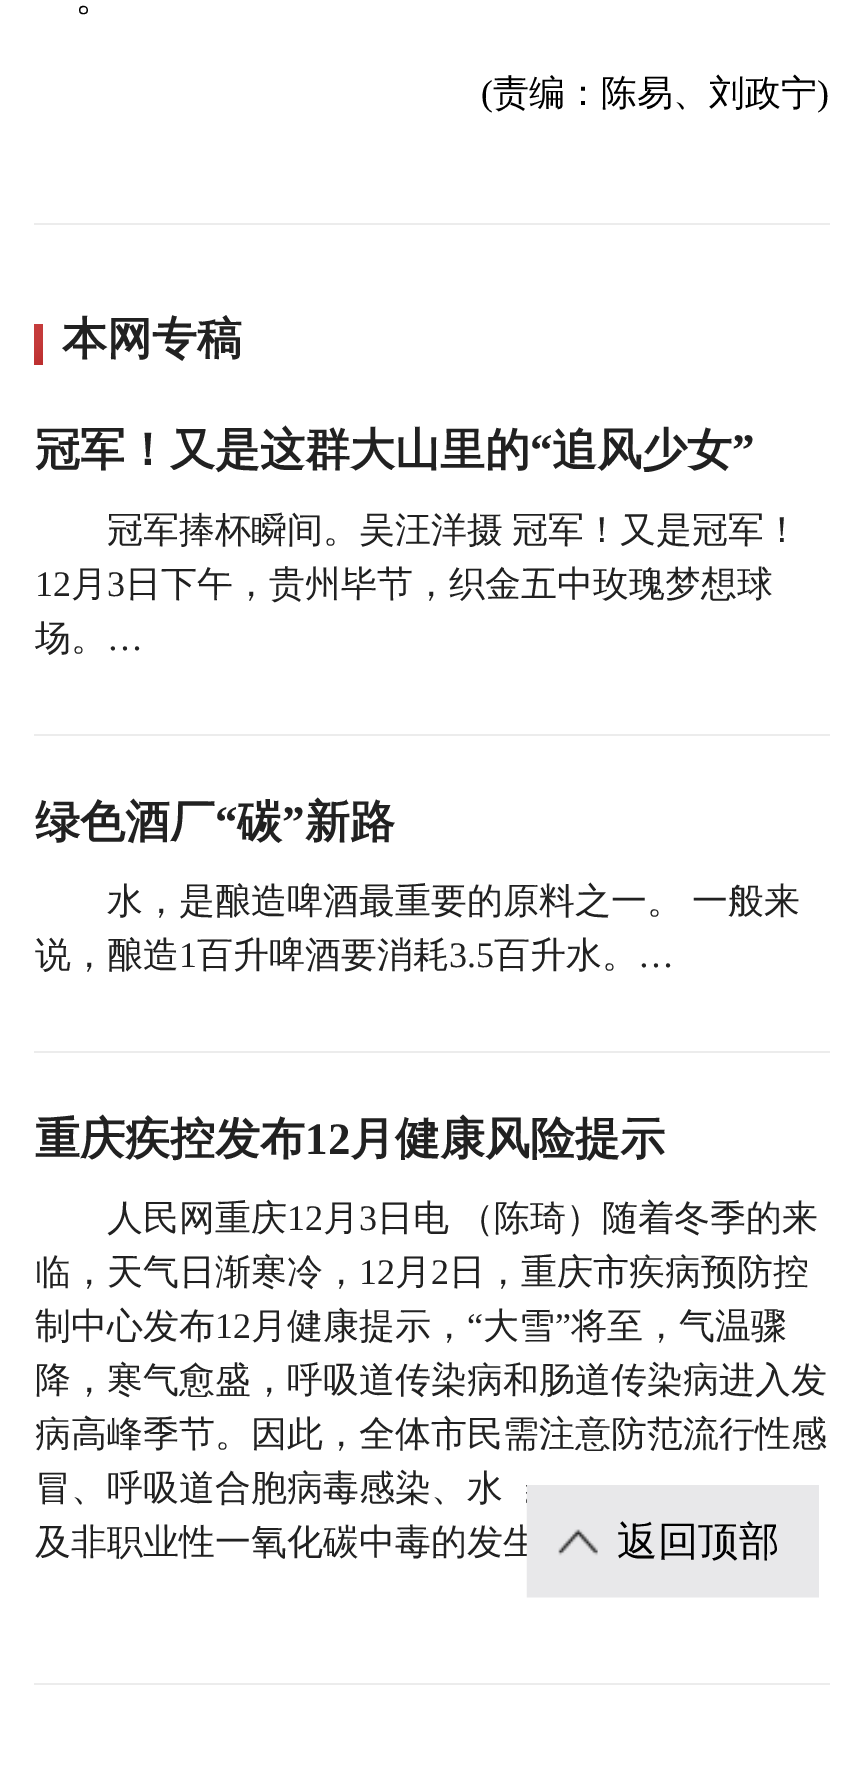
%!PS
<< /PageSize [863 1777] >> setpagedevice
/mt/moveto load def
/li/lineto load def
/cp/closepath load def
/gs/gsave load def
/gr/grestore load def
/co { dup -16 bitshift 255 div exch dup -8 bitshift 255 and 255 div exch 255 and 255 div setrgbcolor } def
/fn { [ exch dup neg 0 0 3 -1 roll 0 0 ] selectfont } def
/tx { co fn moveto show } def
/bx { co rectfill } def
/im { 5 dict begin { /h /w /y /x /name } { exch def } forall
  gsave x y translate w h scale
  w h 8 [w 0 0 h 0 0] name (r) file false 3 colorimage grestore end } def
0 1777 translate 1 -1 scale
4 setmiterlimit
0 0 863 1777 16#FFFFFF bx
34 223 796 2 16#ECECEC bx
gs 34 324 mt 43 324 li 43 365 li 34 365 li cp clip newpath
<< /ShadingType 2 /ColorSpace /DeviceRGB /Coords [26 332 51 357] /Extend [true true] /Function << /FunctionType 3 /Domain [0 1] /Functions [<< /FunctionType 2 /Domain [0 1] /C0 [.773 .239 .239] /C1 [.769 .227 .227] /N 1 >> << /FunctionType 2 /Domain [0 1] /C0 [.769 .227 .227] /C1 [.733 .176 .176] /N 1 >>] /Bounds [.49] /Encode [0 1 0 1] >> >> shfill gr
34 734 796 2 16#ECECEC bx
34 1051 796 2 16#ECECEC bx
34 1683 796 2 16#ECECEC bx
(。) 75 10 /WenQuanYiZenHei-Medium 40.5 16#000000 tx
(\() 481 105 /LiberationSerif-Regular 36 16#000000 tx
(责编：陈易、刘政宁) 493 105 /WenQuanYiZenHei-Medium 36 16#000000 tx
(\)) 817 105 /LiberationSerif-Regular 36 16#000000 tx
(本网专稿) 62 354 /WenQuanYiZenHei-Bold 45 16#212121 tx
(冠军！又是这群大山里的) 35 465 /WenQuanYiZenHei-Bold 45 16#212121 tx
(“) 530 465 /LiberationSerif-Bold 45 16#212121 tx
(追风少女) 552 465 /WenQuanYiZenHei-Bold 45 16#212121 tx
(”) 732 465 /LiberationSerif-Bold 45 16#212121 tx
/WenQuanYiZenHei-Medium 36 fn
107 542 mt -2 0 32 (冠军捧杯瞬间。吴汪洋摄 冠军！又是冠军！) widthshow
(12) 35 596 /LiberationSerif-Regular 36 16#212121 tx
(月) 71 596 /WenQuanYiZenHei-Medium 36 16#212121 tx
(3) 107 596 /LiberationSerif-Regular 36 16#212121 tx
(日下午，贵州毕节，织金五中玫瑰梦想球) 125 596 /WenQuanYiZenHei-Medium 36 16#212121 tx
(场。) 35 650 /WenQuanYiZenHei-Medium 36 16#212121 tx
(…) 107 650 /LiberationSerif-Regular 36 16#212121 tx
(绿色酒厂) 35 837 /WenQuanYiZenHei-Bold 45 16#212121 tx
(“) 215 837 /LiberationSerif-Bold 45 16#212121 tx
(碳) 237 837 /WenQuanYiZenHei-Bold 45 16#212121 tx
(”) 282 837 /LiberationSerif-Bold 45 16#212121 tx
(新路) 305 837 /WenQuanYiZenHei-Bold 45 16#212121 tx
/WenQuanYiZenHei-Medium 36 fn
107 913 mt -2 0 32 (水，是酿造啤酒最重要的原料之一。 一般来) widthshow
(说，酿造) 35 967 /WenQuanYiZenHei-Medium 36 16#212121 tx
(1) 179 967 /LiberationSerif-Regular 36 16#212121 tx
(百升啤酒要消耗) 197 967 /WenQuanYiZenHei-Medium 36 16#212121 tx
(3.5) 449 967 /LiberationSerif-Regular 36 16#212121 tx
(百升水。) 494 967 /WenQuanYiZenHei-Medium 36 16#212121 tx
(…) 638 967 /LiberationSerif-Regular 36 16#212121 tx
(重庆疾控发布) 35 1154 /WenQuanYiZenHei-Bold 45 16#212121 tx
(12) 305 1154 /LiberationSerif-Bold 45 16#212121 tx
(月健康风险提示) 350 1154 /WenQuanYiZenHei-Bold 45 16#212121 tx
(人民网重庆) 107 1230 /WenQuanYiZenHei-Medium 36 16#212121 tx
(12) 287 1230 /LiberationSerif-Regular 36 16#212121 tx
(月) 323 1230 /WenQuanYiZenHei-Medium 36 16#212121 tx
(3) 359 1230 /LiberationSerif-Regular 36 16#212121 tx
/WenQuanYiZenHei-Medium 36 fn
377 1230 mt -2 0 32 (日电 （陈琦）随着冬季的来) widthshow
(临，天气日渐寒冷，) 35 1284 /WenQuanYiZenHei-Medium 36 16#212121 tx
(12) 359 1284 /LiberationSerif-Regular 36 16#212121 tx
(月) 395 1284 /WenQuanYiZenHei-Medium 36 16#212121 tx
(2) 431 1284 /LiberationSerif-Regular 36 16#212121 tx
(日，重庆市疾病预防控) 449 1284 /WenQuanYiZenHei-Medium 36 16#212121 tx
(制中心发布) 35 1338 /WenQuanYiZenHei-Medium 36 16#212121 tx
(12) 215 1338 /LiberationSerif-Regular 36 16#212121 tx
(月健康提示，) 251 1338 /WenQuanYiZenHei-Medium 36 16#212121 tx
(“) 467 1338 /LiberationSerif-Regular 36 16#212121 tx
(大雪) 483 1338 /WenQuanYiZenHei-Medium 36 16#212121 tx
(”) 555 1338 /LiberationSerif-Regular 36 16#212121 tx
(将至，气温骤) 571 1338 /WenQuanYiZenHei-Medium 36 16#212121 tx
(降，寒气愈盛，呼吸道传染病和肠道传染病进入发) 35 1392 /WenQuanYiZenHei-Medium 36 16#212121 tx
(病高峰季节。因此，全体市民需注意防范流行性感) 35 1446 /WenQuanYiZenHei-Medium 36 16#212121 tx
(冒、呼吸道合胞病毒感染、水) 35 1500 /WenQuanYiZenHei-Medium 36 16#212121 tx
(及非职业性一氧化碳中毒的发生) 35 1554 /WenQuanYiZenHei-Medium 36 16#212121 tx
(media/1.raw) 526 1485 293 113 im
(返回顶部) 617 1555 /WenQuanYiZenHei-Medium 40.5 16#000000 tx
showpage
